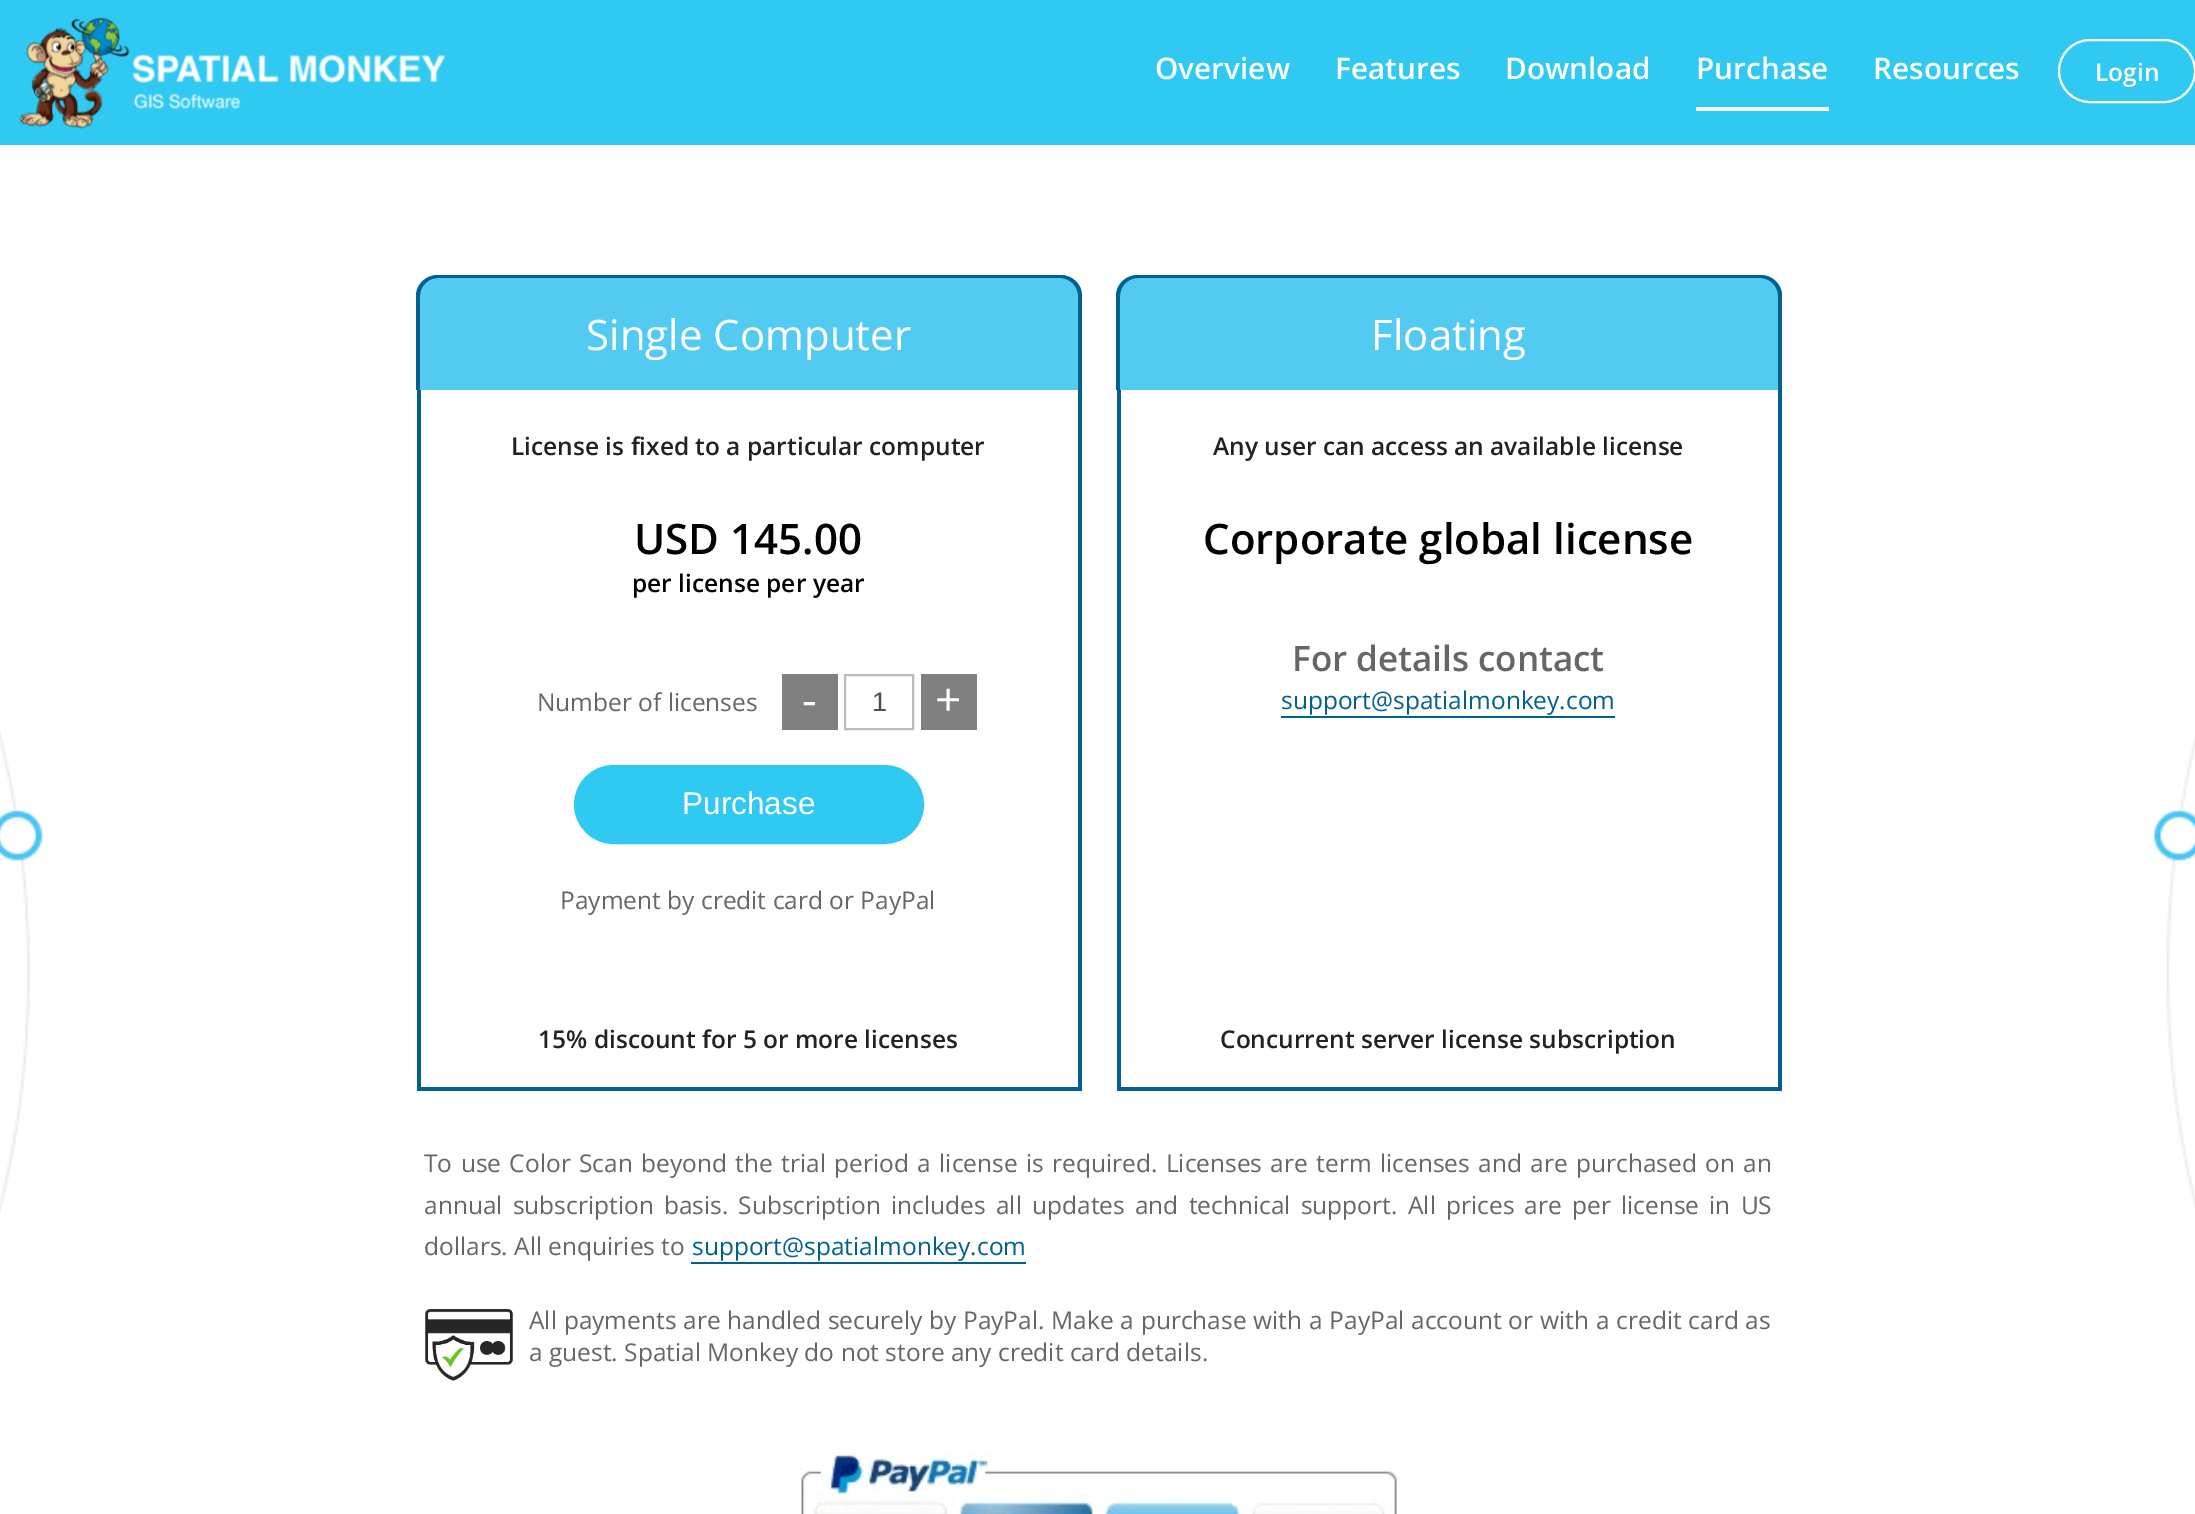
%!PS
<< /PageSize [2195 1514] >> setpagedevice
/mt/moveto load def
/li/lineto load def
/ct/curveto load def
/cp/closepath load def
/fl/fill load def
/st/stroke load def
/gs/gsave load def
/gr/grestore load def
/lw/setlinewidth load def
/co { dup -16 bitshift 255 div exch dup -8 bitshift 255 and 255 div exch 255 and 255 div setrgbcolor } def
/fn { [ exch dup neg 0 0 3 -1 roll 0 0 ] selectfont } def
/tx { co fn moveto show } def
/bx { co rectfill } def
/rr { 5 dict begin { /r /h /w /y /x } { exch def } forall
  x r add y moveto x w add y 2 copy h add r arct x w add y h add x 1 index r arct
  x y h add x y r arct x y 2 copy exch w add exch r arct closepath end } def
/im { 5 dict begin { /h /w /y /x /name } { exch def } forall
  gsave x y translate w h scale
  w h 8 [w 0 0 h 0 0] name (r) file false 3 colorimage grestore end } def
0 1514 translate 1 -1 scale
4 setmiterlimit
0 0 2195 1514 16#FFFFFF bx
0 0 2195 145 16#2FC9F1 bx
(media/1.raw) 19 17 427 112 im
1696 107 133 4 16#FFFFFF bx
2 lw
2059 40 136 62 31 rr st
(media/2.raw) 0 730 2195 484 im
16#52CAF1 co
438 275 mt 1061 275 li 1072.5 275 1082 284.5 1082 296 ct 1082 390 li 417 390 li 417 296 li 417 284.5 426.5 275 438 275 ct cp fl
16#006190 co
438 275 mt 1060 275 li 1072 275 1082 284 1082 296 ct 1082 390 li 416 390 li 416 296 li 416 284 426 275 438 275 ct cp 438 278 mt 1060 278 li 1070 278 1078 286 1078 296 ct 1078 390 li 420 390 li 420 296 li 420 286 428 278 438 278 ct cp eofill
1078 390 4 700 16#006190 bx
417 1087 665 4 16#006190 bx
417 390 4 700 16#006190 bx
782 674 56 56 16#808080 bx
16#BBBBBB co
845 675 68 54 rectstroke
921 674 56 56 16#808080 bx
16#2FC9F1 co
575 766 348 77 38.5 rr gs fl gr
st
16#52CAF1 co
1138 275 mt 1761 275 li 1772.5 275 1782 284.5 1782 296 ct 1782 390 li 1117 390 li 1117 296 li 1117 284.5 1126.5 275 1138 275 ct cp fl
16#006190 co
1138 275 mt 1760 275 li 1772 275 1782 284 1782 296 ct 1782 390 li 1116 390 li 1116 296 li 1116 284 1126 275 1138 275 ct cp 1138 278 mt 1760 278 li 1770 278 1778 286 1778 296 ct 1778 390 li 1120 390 li 1120 296 li 1120 286 1128 278 1138 278 ct cp eofill
1778 390 4 700 16#006190 bx
1117 1087 665 4 16#006190 bx
1117 390 4 700 16#006190 bx
1281 716 334 2 16#006190 bx
691 1262 335 2 16#006190 bx
(media/3.raw) 425 1309 88 72 im
(media/4.raw) 801 1434 597 80 im
(Overview) 1155 79 /OpenSans-SemiBold 29.75 16#FFFFFF tx
(Features) 1335 79 /OpenSans-SemiBold 29.75 16#FFFFFF tx
(Download) 1505 79 /OpenSans-SemiBold 29.75 16#FFFFFF tx
(Purchase) 1696 79 /OpenSans-SemiBold 29.75 16#FFFFFF tx
(Resources) 1873 79 /OpenSans-SemiBold 29.75 16#FFFFFF tx
(Login) 2095 81 /OpenSans-SemiBold 24.5 16#FFFFFF tx
(Single Computer) 586 350 /OpenSans-Regular 42 16#FFFFFF tx
(License is fixed to a particular computer) 511 455 /OpenSans-SemiBold 24.5 16#222222 tx
(USD 145.00) 634 554 /OpenSans-SemiBold 42 16#000000 tx
(per license per year) 632 592 /OpenSans-SemiBold 24.5 16#000000 tx
(Number of licenses) 537 711 /OpenSans-Regular 24.5 16#666666 tx
(-) 802 716 /OpenSans-Regular 46 16#FFFFFF tx
(1) 872 711 /LiberationSans-Regular 27 16#4E4E4E tx
(+) 935 716 /OpenSans-Regular 46 16#FFFFFF tx
(Purchase) 682 814 /LiberationSans-Regular 31.5 16#FFFFFF tx
(Payment by credit card or PayPal) 560 909 /OpenSans-Regular 24.5 16#666666 tx
(15% discount for 5 or more licenses) 538 1048 /OpenSans-SemiBold 24.5 16#222222 tx
(Floating) 1371 350 /OpenSans-Regular 42 16#FFFFFF tx
(Any user can access an available license) 1213 455 /OpenSans-SemiBold 24.5 16#222222 tx
(Corporate global license) 1203 554 /OpenSans-SemiBold 42 16#000000 tx
(For details contact) 1292 671 /OpenSans-SemiBold 35 16#666666 tx
(support@spatialmonkey.com) 1281 709 /OpenSans-Regular 24.5 16#006190 tx
(Concurrent server license subscription) 1220 1048 /OpenSans-SemiBold 24.5 16#222222 tx
/OpenSans-Regular 24.5 fn
16#666666 co
424 1172 mt 2 0 32 (To use Color Scan beyond the trial period a license is required. Licenses are term licenses and are purchased on an) widthshow
424 1214 mt 3.75 0 32 (annual subscription basis. Subscription includes all updates and technical support.) widthshow
1408 1214 mt 3.75 0 32 (All prices are per license in US) widthshow
(dollars. All enquiries to) 424 1255 /OpenSans-Regular 24.5 16#666666 tx
(support@spatialmonkey.com) 692 1255 /OpenSans-Regular 24.5 16#006190 tx
16#666666 co
529 1329 mt .4 0 32 (All payments are handled securely by PayPal. Make a purchase with a PayPal account or with a credit card as) widthshow
(a guest. Spatial Monkey do not store any credit card details.) 529 1361 /OpenSans-Regular 24.5 16#666666 tx
showpage
